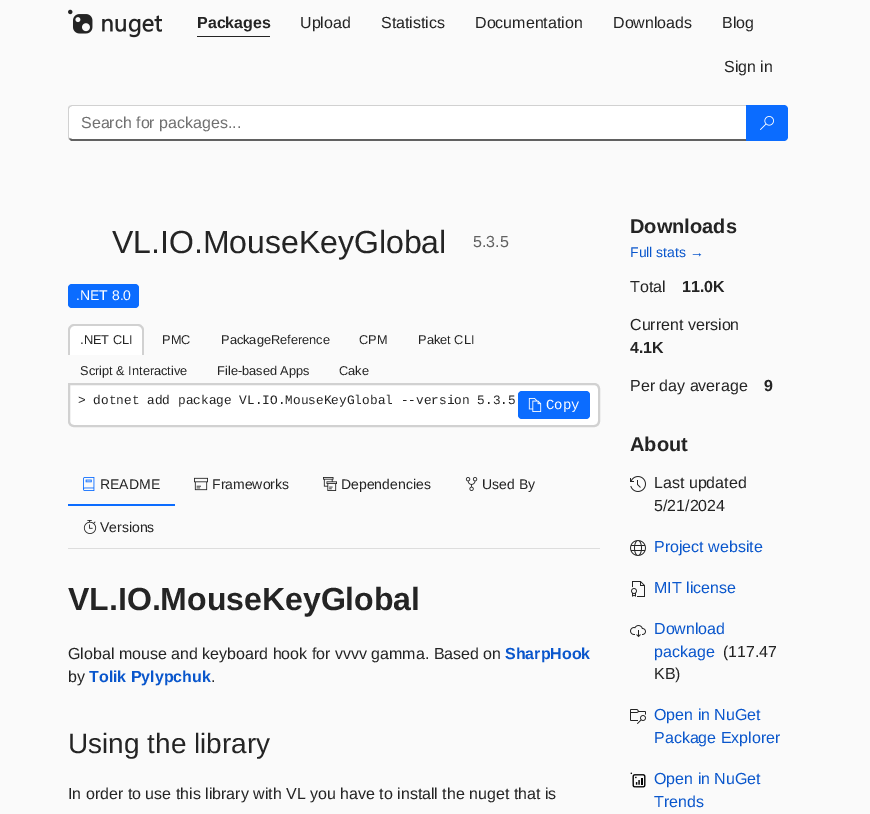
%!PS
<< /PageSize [870 814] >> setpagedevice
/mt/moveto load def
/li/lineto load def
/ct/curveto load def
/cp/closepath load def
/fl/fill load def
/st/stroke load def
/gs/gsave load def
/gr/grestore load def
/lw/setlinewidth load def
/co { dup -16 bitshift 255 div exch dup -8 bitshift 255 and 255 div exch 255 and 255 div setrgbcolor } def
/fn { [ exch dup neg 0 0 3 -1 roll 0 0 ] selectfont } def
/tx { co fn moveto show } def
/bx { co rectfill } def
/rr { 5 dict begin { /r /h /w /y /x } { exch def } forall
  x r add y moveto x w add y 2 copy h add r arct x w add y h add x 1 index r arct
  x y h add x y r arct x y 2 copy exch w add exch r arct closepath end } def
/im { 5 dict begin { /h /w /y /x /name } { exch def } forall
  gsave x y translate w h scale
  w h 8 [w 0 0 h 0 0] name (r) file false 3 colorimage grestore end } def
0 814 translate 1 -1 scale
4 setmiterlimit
0 0 870 814 16#FAFAFA bx
(media/1.raw) 68 9 94 29 im
197 36 73 1 16#242424 bx
16#FFFFFF co
72 106 mt 746 106 li 746 139 li 72 139 li 70 139 69 138 69 137 ct 69 109 li 69 107 70 106 72 106 ct cp fl
16#D1D1D1 co
72 105 mt 69 106 li 70 107 li 72 106 li 746 106 li 747 105 li cp fl
16#616161 co
747 141 mt 746 139 li 72 139 li 69 138 li 69 139 li 70 140 71 141 72 141 ct cp fl
16#D1D1D1 co
68 109 mt 68 137 li 68 138 68.5 138.5 69 139.5 ct 69.5 138 li 69 137 li 69 108.5 li 70 107 li 69 106 li 68.5 107 68 108 68 109 ct cp fl
16#0B6CFF co
746 105 mt 784 105 li 786 105 788 107 788 109 ct 788 137 li 788 139 786 141 784 141 ct 746 141 li cp fl
(media/2.raw) 760 116 14 14 im
68 284 71 24 4 rr fl
16#FFFFFF co
74 324 mt 138 324 li 141.5 324 144 326.5 144 330 ct 144 355 li 68 355 li 68 330 li 68 326.5 70.5 324 74 324 ct cp fl
16#D1D1D1 co
74 324 mt 138 324 li 141 324 144 327 144 330 ct 144 355 li 68 355 li 68 330 li 68 327 71 324 74 324 ct cp 74 326 mt 138 326 li 140 326 142 328 142 330 ct 142 355 li 70 355 li 70 330 li 70 328 72 326 74 326 ct cp eofill
16#FFFFFF co
69 384 mt 594 384 li 597 384 599 386 599 389 ct 599 421 li 599 424 597 426 594 426 ct 74 426 li 71 426 69 424 69 421 ct cp gs fl gr
16#D1D1D1 co
2 lw
st
16#0B6CFF co
518 391 72 28 4 rr fl
(media/3.raw) 528 398 14 14 im
68 548 532 1 16#DDDDDD bx
68 504 107 2 16#0B6CFF bx
(media/4.raw) 83 477 12 14 im
(media/5.raw) 194 477 14 14 im
(media/6.raw) 323 477 14 14 im
(media/7.raw) 465 477 13 14 im
(media/8.raw) 83 520 14 14 im
(media/9.raw) 630 476 16 16 im
(media/10.raw) 630 540 16 16 im
(media/11.raw) 631 581 14 16 im
(media/12.raw) 630 625 16 13 im
(media/13.raw) 630 709 16 15 im
(media/14.raw) 630 772 16 16 im
(Packages) 197 28 /LiberationSans-Bold 16 16#242424 tx
(Upload) 300 28 /LiberationSans-Regular 16 16#242424 tx
(Statistics) 381 28 /LiberationSans-Regular 16 16#242424 tx
(Documentation) 475 28 /LiberationSans-Regular 16 16#242424 tx
(Downloads) 613 28 /LiberationSans-Regular 16 16#242424 tx
(Blog) 722 28 /LiberationSans-Regular 16 16#242424 tx
(Sign in) 724 72 /LiberationSans-Regular 16 16#242424 tx
(Search for packages...) 81 128 /LiberationSans-Regular 16 16#707070 tx
(VL.IO.MouseKeyGlobal) 112 253 /LiberationSans-Regular 32 16#242424 tx
(5.3.5) 473 247 /LiberationSans-Regular 16 16#616161 tx
(.NET 8.0) 76 300 /LiberationSans-Regular 14 16#FFFFFF tx
(.NET CLI) 80 344 /LiberationSans-Regular 12.8 16#242424 tx
(PMC) 162 344 /LiberationSans-Regular 12.8 16#242424 tx
(PackageReference) 221 344 /LiberationSans-Regular 12.8 16#242424 tx
(CPM) 359 344 /LiberationSans-Regular 12.8 16#242424 tx
(Paket CLI) 418 344 /LiberationSans-Regular 12.8 16#242424 tx
(Script & Interactive) 80 375 /LiberationSans-Regular 12.8 16#242424 tx
(File-based Apps) 217 375 /LiberationSans-Regular 12.8 16#242424 tx
(Cake) 339 375 /LiberationSans-Regular 12.8 16#242424 tx
(> dotnet add package VL.IO.MouseKeyGlobal --version 5.3.5) 78 404 /LiberationMono-Regular 12.8 16#242424 tx
(Copy) 546 409 /LiberationMono-Regular 14 16#FFFFFF tx
(README) 100 489 /LiberationSans-Regular 14 16#242424 tx
(Frameworks) 212 489 /LiberationSans-Regular 14 16#242424 tx
(Dependencies) 341 489 /LiberationSans-Regular 14 16#242424 tx
(Used By) 482 489 /LiberationSans-Regular 14 16#242424 tx
(Versions) 100 532 /LiberationSans-Regular 14 16#242424 tx
(VL.IO.MouseKeyGlobal) 68 610 /LiberationSans-Bold 32 16#242424 tx
(Global mouse and keyboard hook for vvvv gamma. Based on) 68 659 /LiberationSans-Regular 16 16#242424 tx
(SharpHook) 505 659 /LiberationSans-Bold 16 16#0956CC tx
(by) 68 682 /LiberationSans-Regular 16 16#242424 tx
(Tolik Pylypchuk) 89 682 /LiberationSans-Bold 16 16#0956CC tx
(.) 211 682 /LiberationSans-Regular 16 16#242424 tx
(Using the library) 68 753 /LiberationSans-Regular 28 16#242424 tx
(In order to use this library with VL you have to install the nuget that is) 68 799 /LiberationSans-Regular 16 16#242424 tx
(Downloads) 630 233 /LiberationSans-Bold 20 16#242424 tx
(Full stats →) 630 257 /LiberationSans-Regular 14 16#0956CC tx
(Total) 630 292 /LiberationSans-Regular 16 16#242424 tx
(11.0K) 682 292 /LiberationSans-Bold 16 16#242424 tx
(Current version) 630 330 /LiberationSans-Regular 16 16#242424 tx
(4.1K) 630 353 /LiberationSans-Bold 16 16#242424 tx
(Per day average) 630 391 /LiberationSans-Regular 16 16#242424 tx
(9) 764 391 /LiberationSans-Bold 16 16#242424 tx
(About) 630 451 /LiberationSans-Bold 20 16#242424 tx
(Last updated) 654 488 /LiberationSans-Regular 16 16#242424 tx
(5/21/2024) 654 511 /LiberationSans-Regular 16 16#242424 tx
(Project website) 654 552 /LiberationSans-Regular 16 16#0956CC tx
(MIT license) 654 593 /LiberationSans-Regular 16 16#0956CC tx
(Download) 654 634 /LiberationSans-Regular 16 16#0956CC tx
(package) 654 657 /LiberationSans-Regular 16 16#0956CC tx
(\(117.47) 723 657 /LiberationSans-Regular 16 16#242424 tx
(KB\)) 654 679 /LiberationSans-Regular 16 16#242424 tx
(Open in NuGet) 654 720 /LiberationSans-Regular 16 16#0956CC tx
(Package Explorer) 654 743 /LiberationSans-Regular 16 16#0956CC tx
(Open in NuGet) 654 784 /LiberationSans-Regular 16 16#0956CC tx
(Trends) 654 807 /LiberationSans-Regular 16 16#0956CC tx
showpage
